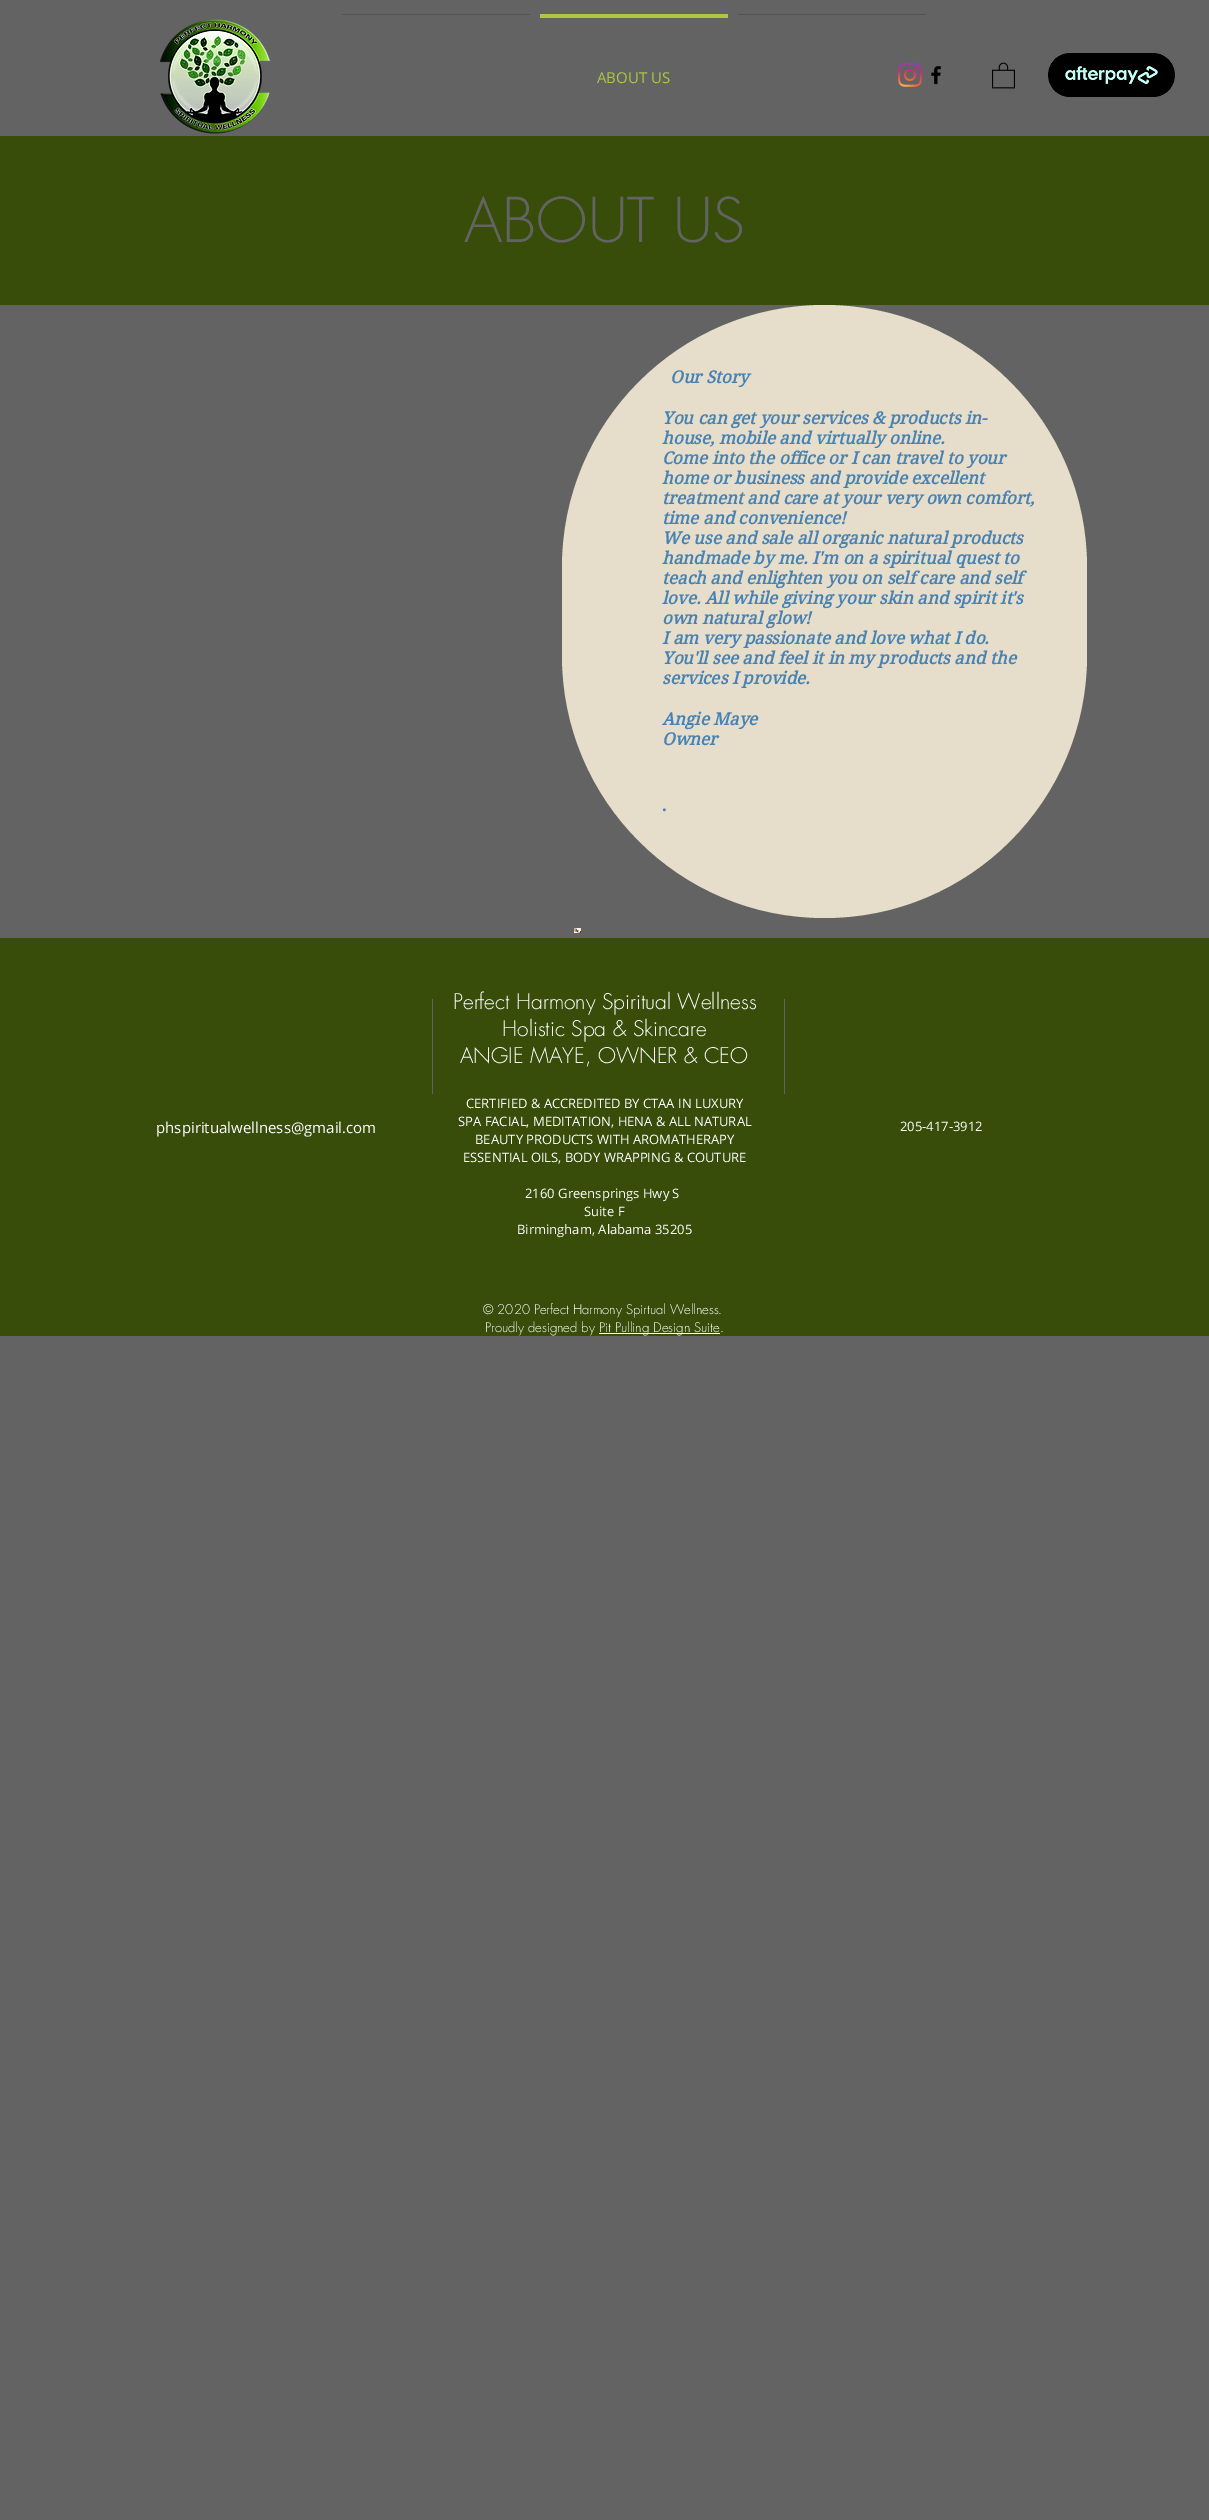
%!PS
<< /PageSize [1209 2520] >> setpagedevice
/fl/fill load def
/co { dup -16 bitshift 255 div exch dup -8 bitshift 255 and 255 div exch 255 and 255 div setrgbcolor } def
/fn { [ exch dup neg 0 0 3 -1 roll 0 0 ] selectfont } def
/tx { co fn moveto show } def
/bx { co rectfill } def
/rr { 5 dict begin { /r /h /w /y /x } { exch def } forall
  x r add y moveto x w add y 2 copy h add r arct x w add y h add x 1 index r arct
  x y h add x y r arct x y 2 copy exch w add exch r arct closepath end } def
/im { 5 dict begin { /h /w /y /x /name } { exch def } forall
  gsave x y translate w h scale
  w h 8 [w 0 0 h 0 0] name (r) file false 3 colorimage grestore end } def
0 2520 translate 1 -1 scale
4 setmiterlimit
0 0 1209 2520 16#636363 bx
(media/1.raw) 159 19 111 115 im
342 14 188 1 16#555353 bx
738 14 188 1 16#555353 bx
540 14 188 4 16#ADC743 bx
(media/2.raw) 898 63 24 24 im
(media/3.raw) 931 66 10 19 im
(media/4.raw) 992 62 23 27 im
(media/5.raw) 1048 53 127 44 im
0 136 1209 169 16#374D09 bx
16#E6DECA co
562 305 525 613 262.5 rr fl
(media/6.raw) 574 928 7 5 im
0 938 1209 398 16#374D09 bx
599 1333 121 1 16#FFFFFF bx
432 999 1 95 16#636363 bx
784 999 1 95 16#636363 bx
(ABOUT US) 597 83 /OpenSans-Regular 15 16#ADC743 tx
(ABOUT US) 464 242 /futura-Light 60 16#636363 tx
(Our Story) 670 383 /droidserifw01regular-BoldItalic 17 16#4682B4 tx
(You can get your services & products in-) 662 424 /droidserifw01regular-BoldItalic 17 16#4682B4 tx
(house, mobile and virtually online.) 662 444 /droidserifw01regular-BoldItalic 17 16#4682B4 tx
(Come into the office or I can travel to your) 662 464 /droidserifw01regular-BoldItalic 17 16#4682B4 tx
(home or business and provide excellent) 662 484 /droidserifw01regular-BoldItalic 17 16#4682B4 tx
(treatment and care at your very own comfort,) 662 504 /droidserifw01regular-BoldItalic 17 16#4682B4 tx
(time and convenience!) 662 524 /droidserifw01regular-BoldItalic 17 16#4682B4 tx
(We use and sale all organic natural products) 662 544 /droidserifw01regular-BoldItalic 17 16#4682B4 tx
(handmade by me. I'm on a spiritual quest to) 662 564 /droidserifw01regular-BoldItalic 17 16#4682B4 tx
(teach and enlighten you on self care and self) 662 584 /droidserifw01regular-BoldItalic 17 16#4682B4 tx
(love. All while giving your skin and spirit it's) 662 604 /droidserifw01regular-BoldItalic 17 16#4682B4 tx
(own natural glow!) 662 624 /droidserifw01regular-BoldItalic 17 16#4682B4 tx
(I am very passionate and love what I do.) 662 644 /droidserifw01regular-BoldItalic 17 16#4682B4 tx
(You'll see and feel it in my products and the) 662 664 /droidserifw01regular-BoldItalic 17 16#4682B4 tx
(services I provide.) 662 684 /droidserifw01regular-BoldItalic 17 16#4682B4 tx
(Angie Maye) 662 725 /droidserifw01regular-BoldItalic 17 16#4682B4 tx
(Owner) 662 745 /droidserifw01regular-BoldItalic 17 16#4682B4 tx
(.) 662 811 /OpenSans-Bold 17 16#4682B4 tx
(Perfect Harmony Spiritual Wellness) 453 1009 /futura-Light 21 16#FFFFFF tx
(Holistic Spa & Skincare) 502 1036 /futura-Light 21 16#FFFFFF tx
(ANGIE MAYE, OWNER & CEO) 460 1063 /futura-Light 21 16#FFFFFF tx
(phspiritualwellness@gmail.com) 156 1133 /OpenSans-Regular 15 16#FFFFFF tx
(CERTIFIED & ACCREDITED BY CTAA IN LUXURY) 466 1108 /OpenSans-Regular 13 16#FFFFFF tx
(SPA FACIAL, MEDITATION, HENA & ALL NATURAL) 458 1126 /OpenSans-Regular 13 16#FFFFFF tx
(BEAUTY PRODUCTS WITH AROMATHERAPY) 475 1144 /OpenSans-Regular 13 16#FFFFFF tx
(ESSENTIAL OILS, BODY WRAPPING & COUTURE) 463 1162 /OpenSans-Regular 13 16#FFFFFF tx
(2160 Greensprings Hwy S) 525 1198 /OpenSans-Regular 13 16#FFFFFF tx
(Suite F) 584 1216 /OpenSans-Regular 13 16#FFFFFF tx
(Birmingham, Alabama 35205) 517 1234 /OpenSans-Regular 13 16#FFFFFF tx
(205-417-3912) 900 1131 /OpenSans-Regular 13 16#FFFFFF tx
(© 2020 Perfect Harmony Spirtual Wellness.) 483 1314 /futura-Light 13 16#FFFFFF tx
(Proudly designed by) 485 1332 /futura-Light 13 16#FFFFFF tx
(Pit Pulling Design Suite.) 599 1332 /futura-Light 13 16#FFFFFF tx
showpage
